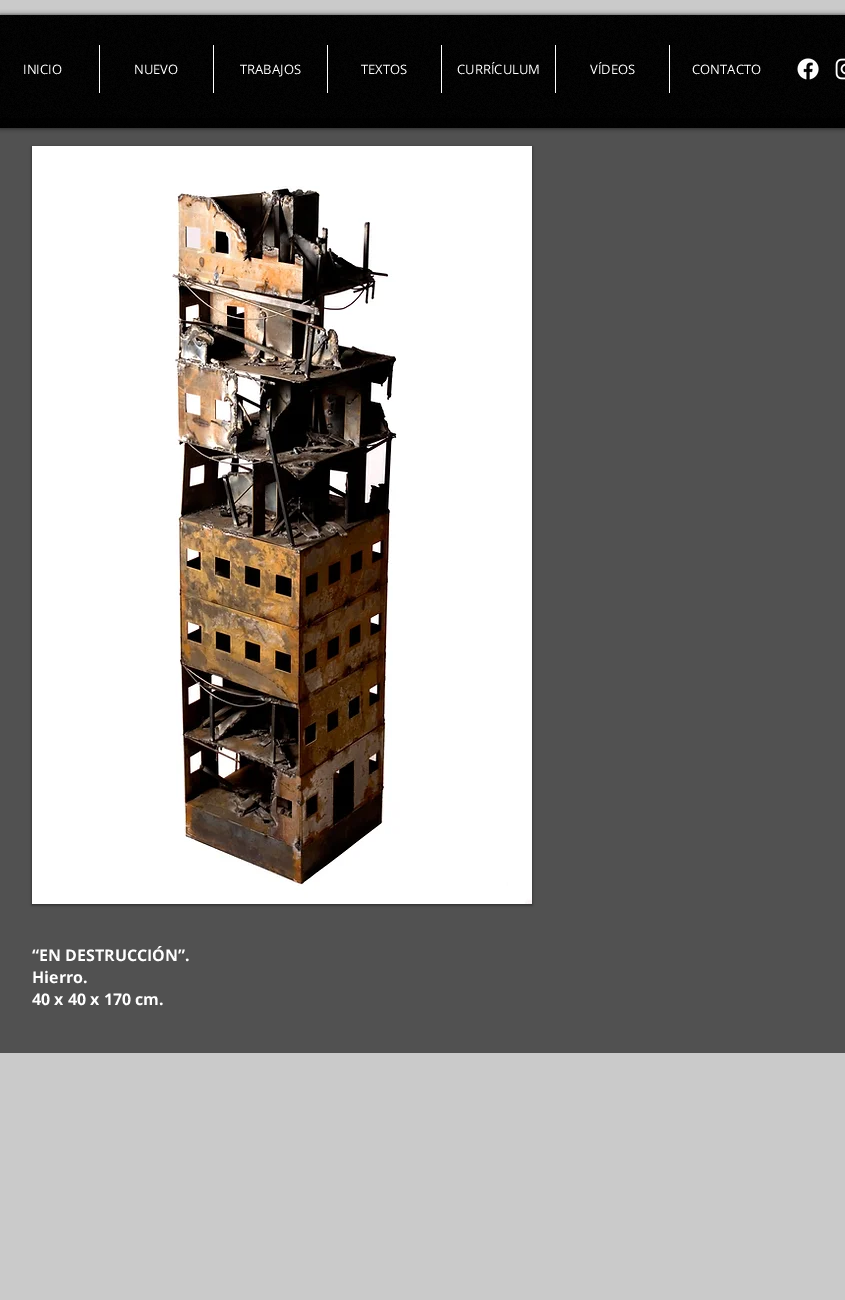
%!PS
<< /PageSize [845 1300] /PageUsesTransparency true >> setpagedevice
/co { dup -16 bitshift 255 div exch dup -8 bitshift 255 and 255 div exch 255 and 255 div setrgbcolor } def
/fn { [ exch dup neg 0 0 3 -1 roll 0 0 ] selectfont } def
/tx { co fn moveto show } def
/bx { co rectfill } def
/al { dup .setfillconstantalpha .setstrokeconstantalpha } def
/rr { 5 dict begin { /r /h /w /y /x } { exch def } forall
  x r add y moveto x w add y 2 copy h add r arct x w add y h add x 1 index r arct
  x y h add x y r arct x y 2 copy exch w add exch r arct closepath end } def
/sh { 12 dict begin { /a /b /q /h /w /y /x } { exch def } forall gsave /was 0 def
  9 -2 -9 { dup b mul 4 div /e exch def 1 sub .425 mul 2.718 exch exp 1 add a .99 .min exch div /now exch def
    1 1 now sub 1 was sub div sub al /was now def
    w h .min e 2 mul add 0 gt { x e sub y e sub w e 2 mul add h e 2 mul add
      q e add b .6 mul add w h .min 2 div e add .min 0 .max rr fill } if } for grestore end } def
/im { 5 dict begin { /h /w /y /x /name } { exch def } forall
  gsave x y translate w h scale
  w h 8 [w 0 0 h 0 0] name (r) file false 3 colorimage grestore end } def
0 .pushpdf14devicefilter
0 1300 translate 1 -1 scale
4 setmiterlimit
0 0 845 1300 16#CACACA bx
16#000000 co
0 15 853 113 0 2.5 .7 sh
0 15 845 113 16#000000 bx
(media/1.raw) 0 15 845 113 im
99 45 1 48 16#FFFFFF bx
213 45 1 48 16#FFFFFF bx
327 45 1 48 16#FFFFFF bx
441 45 1 48 16#FFFFFF bx
555 45 1 48 16#FFFFFF bx
669 45 1 48 16#FFFFFF bx
(media/2.raw) 797 58 22 22 im
(media/3.raw) 835 58 10 22 im
0.6 al
0 118 845 935 16#000000 bx
1 al
32 147 500 758 0 1.5 .5 sh
32 146 500 758 16#FFFFFF bx
(media/4.raw) 172 186 360 718 im
(INICIO) 23 74 /OpenSans-Regular 13 16#FFFFFF tx
(NUEVO) 134 74 /OpenSans-Regular 13 16#FFFFFF tx
(TRABAJOS) 240 74 /OpenSans-Regular 13 16#FFFFFF tx
(TEXTOS) 361 74 /OpenSans-Regular 13 16#FFFFFF tx
(CURRÍCULUM) 457 74 /OpenSans-Regular 13 16#FFFFFF tx
(VÍDEOS) 590 74 /OpenSans-Regular 13 16#FFFFFF tx
(CONTACTO) 692 74 /OpenSans-Regular 13 16#FFFFFF tx
(“EN DESTRUCCIÓN”.) 32 961 /OpenSans-Bold 16 16#FFFFFF tx
(Hierro.) 32 983 /OpenSans-Bold 16 16#FFFFFF tx
(40 x 40 x 170 cm.) 32 1005 /OpenSans-Bold 16 16#FFFFFF tx
.poppdf14devicefilter showpage
